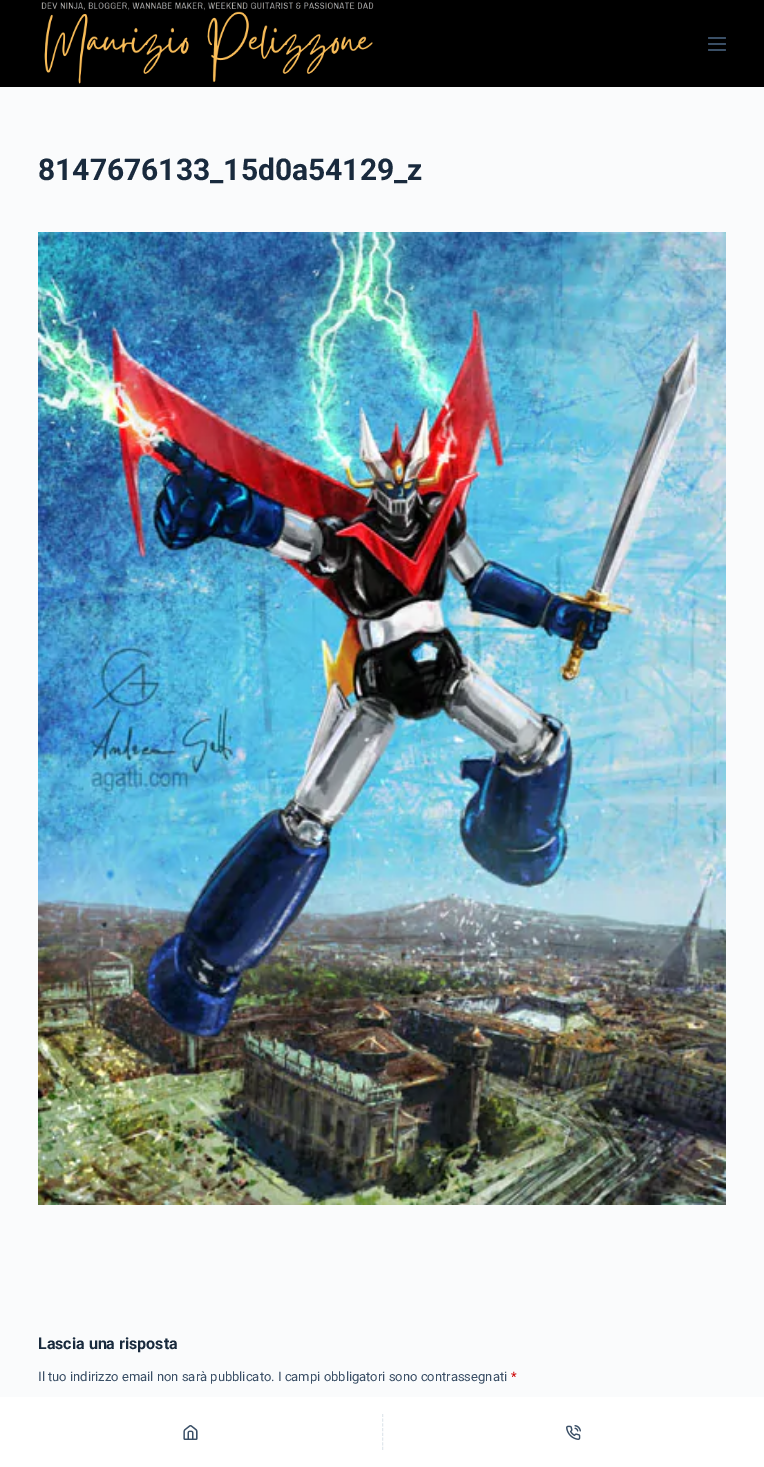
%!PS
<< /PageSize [764 1467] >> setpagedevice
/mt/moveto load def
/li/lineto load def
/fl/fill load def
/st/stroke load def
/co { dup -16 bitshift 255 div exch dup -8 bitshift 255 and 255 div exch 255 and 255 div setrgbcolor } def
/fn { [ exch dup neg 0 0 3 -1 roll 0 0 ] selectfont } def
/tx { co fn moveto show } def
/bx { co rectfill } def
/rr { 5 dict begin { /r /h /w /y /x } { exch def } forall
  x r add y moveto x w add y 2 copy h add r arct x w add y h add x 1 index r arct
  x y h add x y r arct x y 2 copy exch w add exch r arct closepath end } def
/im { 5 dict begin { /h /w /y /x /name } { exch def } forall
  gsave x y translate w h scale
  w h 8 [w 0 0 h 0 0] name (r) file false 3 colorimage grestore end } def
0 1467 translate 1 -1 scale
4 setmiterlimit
0 0 764 1467 16#FAFBFC bx
0 0 764 87 16#000000 bx
(media/1.raw) 41 2 333 82 im
16#3A4F66 co
708 37 18 2 1 rr fl
708 43 18 2 1 rr fl
708 49 18 2 1 rr fl
(media/2.raw) 38 232 688 973 im
0 1397 764 70 16#FFFFFF bx
(media/3.raw) 183 1425 15 15 im
16#E1E8ED co
[3 1.71] 0 setdash
382.5 1414 mt 382.5 1450 li st
(media/4.raw) 566 1425 15 15 im
(8147676133_15d0a54129_z) 38 180 /Roboto-Bold 30 16#192A3D tx
(Lascia una risposta) 38 1349 /Roboto-Bold 16 16#192A3D tx
(Il tuo indirizzo email non sarà pubblicato. I campi obbligatori sono contrassegnati) 38 1381 /Roboto-Regular 13 16#3A4F66 tx
(*) 511 1381 /Roboto-Regular 13 16#CC0000 tx
showpage
